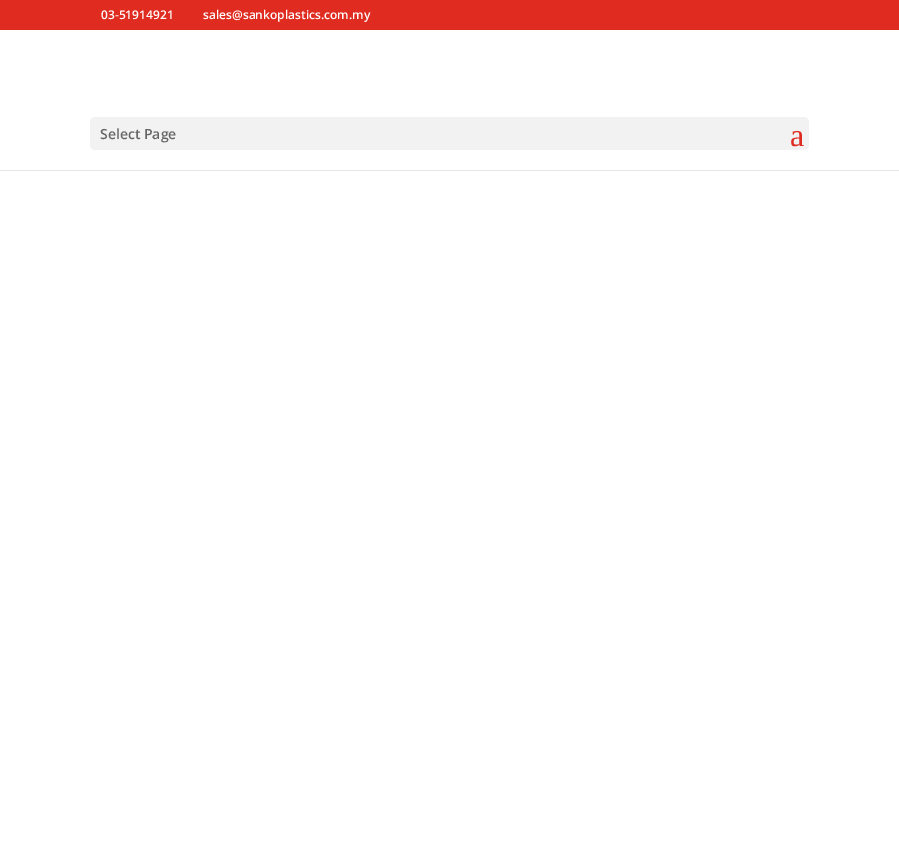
%!PS
<< /PageSize [899 865] >> setpagedevice
/fl/fill load def
/co { dup -16 bitshift 255 div exch dup -8 bitshift 255 and 255 div exch 255 and 255 div setrgbcolor } def
/fn { [ exch dup neg 0 0 3 -1 roll 0 0 ] selectfont } def
/tx { co fn moveto show } def
/bx { co rectfill } def
/rr { 5 dict begin { /r /h /w /y /x } { exch def } forall
  x r add y moveto x w add y 2 copy h add r arct x w add y h add x 1 index r arct
  x y h add x y r arct x y 2 copy exch w add exch r arct closepath end } def
0 865 translate 1 -1 scale
4 setmiterlimit
0 0 899 865 16#FFFFFF bx
0 0 899 30 16#E02B20 bx
0 170 899 1 16#E6E6E6 bx
16#F2F2F2 co
90 117 719 33 5 rr fl
(03-51914921) 101 19 /OpenSans-SemiBold 12 16#FFFFFF tx
(sales@sankoplastics.com.my) 203 19 /OpenSans-SemiBold 12 16#FFFFFF tx
(Select Page) 100 139 /OpenSans-SemiBold 14 16#666666 tx
(a) 790 146 /LiberationSerif-Regular 32 16#E02B20 tx
showpage
